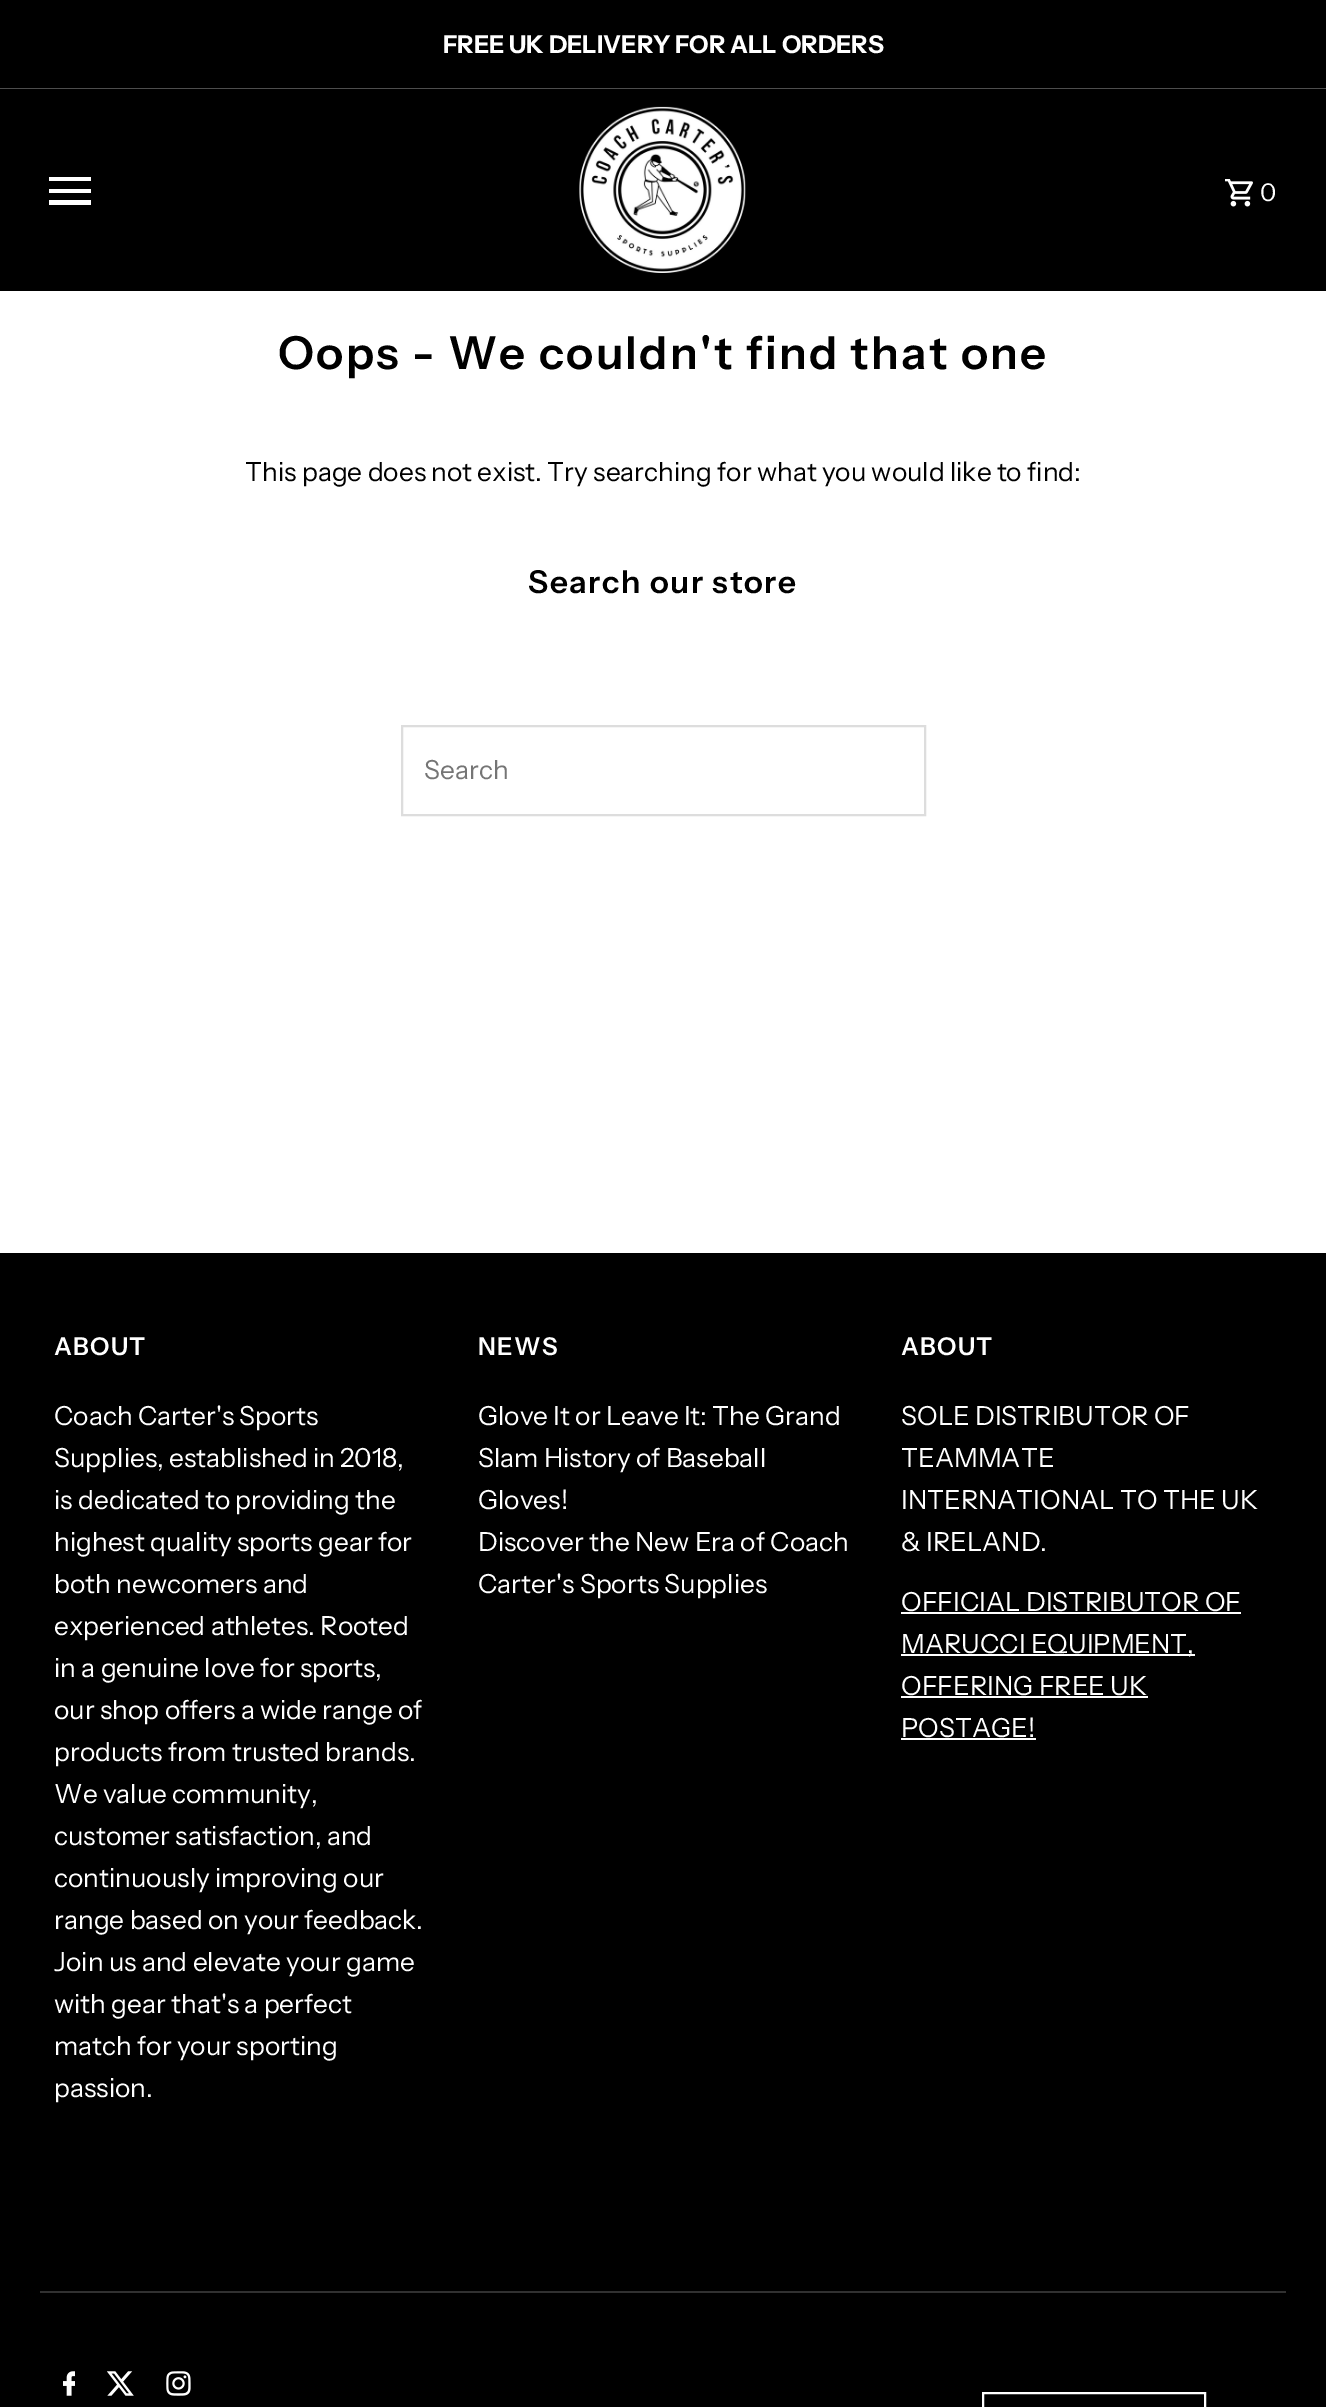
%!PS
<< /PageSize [1326 2407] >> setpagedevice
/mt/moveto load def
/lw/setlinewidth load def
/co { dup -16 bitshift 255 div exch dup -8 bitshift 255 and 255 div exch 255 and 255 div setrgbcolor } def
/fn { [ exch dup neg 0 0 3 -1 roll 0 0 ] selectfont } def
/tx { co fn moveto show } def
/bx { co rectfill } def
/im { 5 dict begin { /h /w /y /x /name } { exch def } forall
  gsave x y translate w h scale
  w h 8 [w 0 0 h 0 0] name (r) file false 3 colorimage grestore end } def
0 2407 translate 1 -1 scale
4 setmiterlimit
0 0 1326 2407 16#FFFFFF bx
0 88 1326 1 16#4D4D4D bx
0 0 1326 88 16#000000 bx
0 89 1326 202 16#000000 bx
49 200 42 5 16#FFFFFF bx
49 189 42 4 16#FFFFFF bx
49 177 42 4 16#FFFFFF bx
(media/1.raw) 579 106 167 167 im
(media/2.raw) 1225 179 28 28 im
16#DDDDDD co
2 lw
402 726 523 89 rectstroke
0 1253 1326 1154 16#000000 bx
901 1612 340 2 16#FFFFFF bx
901 1654 294 2 16#FFFFFF bx
901 1696 247 2 16#FFFFFF bx
901 1738 135 2 16#FFFFFF bx
40 2291 1246 2 16#313131 bx
(media/3.raw) 63 2371 12 25 im
(media/4.raw) 107 2371 27 25 im
(media/5.raw) 166 2371 25 25 im
16#FFFFFF co
983 2393 222 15 rectstroke
(FREE UK DELIVERY FOR ALL ORDERS) 443 53 /InstrumentSans-Bold 24.5 16#FFFFFF tx
/InstrumentSans-Regular 24.5 fn
1260 201 mt 2 0 (0) ashow
/InstrumentSans-SemiBold 45.5 fn
16#000000 co
278 369 mt 2.25 0 (Oops - We couldn't find that one) ashow
(This page does not exist. Try searching for what you would like to find:) 245 481 /InstrumentSans-Regular 26.25 16#000000 tx
/InstrumentSans-SemiBold 31.5 fn
528 593 mt 1.6 0 (Search our store) ashow
(Search) 424 779 /InstrumentSans-Regular 26.25 16#757575 tx
/InstrumentSans-SemiBold 24.5 fn
16#FFFFFF co
54 1355 mt 1.25 0 (ABOUT) ashow
(Coach Carter's Sports) 54 1425 /InstrumentSans-Regular 26.25 16#FFFFFF tx
(Supplies, established in 2018,) 54 1467 /InstrumentSans-Regular 26.25 16#FFFFFF tx
(is dedicated to providing the) 54 1509 /InstrumentSans-Regular 26.25 16#FFFFFF tx
(highest quality sports gear for) 54 1551 /InstrumentSans-Regular 26.25 16#FFFFFF tx
(both newcomers and) 54 1593 /InstrumentSans-Regular 26.25 16#FFFFFF tx
(experienced athletes. Rooted) 54 1635 /InstrumentSans-Regular 26.25 16#FFFFFF tx
(in a genuine love for sports,) 54 1677 /InstrumentSans-Regular 26.25 16#FFFFFF tx
(our shop offers a wide range of) 54 1719 /InstrumentSans-Regular 26.25 16#FFFFFF tx
(products from trusted brands.) 54 1761 /InstrumentSans-Regular 26.25 16#FFFFFF tx
(We value community,) 54 1803 /InstrumentSans-Regular 26.25 16#FFFFFF tx
(customer satisfaction, and) 54 1845 /InstrumentSans-Regular 26.25 16#FFFFFF tx
(continuously improving our) 54 1887 /InstrumentSans-Regular 26.25 16#FFFFFF tx
(range based on your feedback.) 54 1929 /InstrumentSans-Regular 26.25 16#FFFFFF tx
(Join us and elevate your game) 54 1971 /InstrumentSans-Regular 26.25 16#FFFFFF tx
(with gear that's a perfect) 54 2013 /InstrumentSans-Regular 26.25 16#FFFFFF tx
(match for your sporting) 54 2055 /InstrumentSans-Regular 26.25 16#FFFFFF tx
(passion.) 54 2097 /InstrumentSans-Regular 26.25 16#FFFFFF tx
/InstrumentSans-SemiBold 24.5 fn
478 1355 mt 1.25 0 (NEWS) ashow
(Glove It or Leave It: The Grand) 478 1425 /InstrumentSans-Regular 26.25 16#FFFFFF tx
(Slam History of Baseball) 478 1467 /InstrumentSans-Regular 26.25 16#FFFFFF tx
(Gloves!) 478 1509 /InstrumentSans-Regular 26.25 16#FFFFFF tx
(Discover the New Era of Coach) 478 1551 /InstrumentSans-Regular 26.25 16#FFFFFF tx
(Carter's Sports Supplies) 478 1593 /InstrumentSans-Regular 26.25 16#FFFFFF tx
/InstrumentSans-SemiBold 24.5 fn
901 1355 mt 1.25 0 (ABOUT) ashow
(SOLE DISTRIBUTOR OF) 901 1425 /InstrumentSans-Regular 26.25 16#FFFFFF tx
(TEAMMATE) 901 1467 /InstrumentSans-Regular 26.25 16#FFFFFF tx
(INTERNATIONAL TO THE UK) 901 1509 /InstrumentSans-Regular 26.25 16#FFFFFF tx
(& IRELAND.) 901 1551 /InstrumentSans-Regular 26.25 16#FFFFFF tx
(OFFICIAL DISTRIBUTOR OF) 901 1611 /InstrumentSans-Regular 26.25 16#FFFFFF tx
(MARUCCI EQUIPMENT,) 901 1653 /InstrumentSans-Regular 26.25 16#FFFFFF tx
(OFFERING FREE UK) 901 1695 /InstrumentSans-Regular 26.25 16#FFFFFF tx
(POSTAGE!) 901 1737 /InstrumentSans-Regular 26.25 16#FFFFFF tx
showpage
